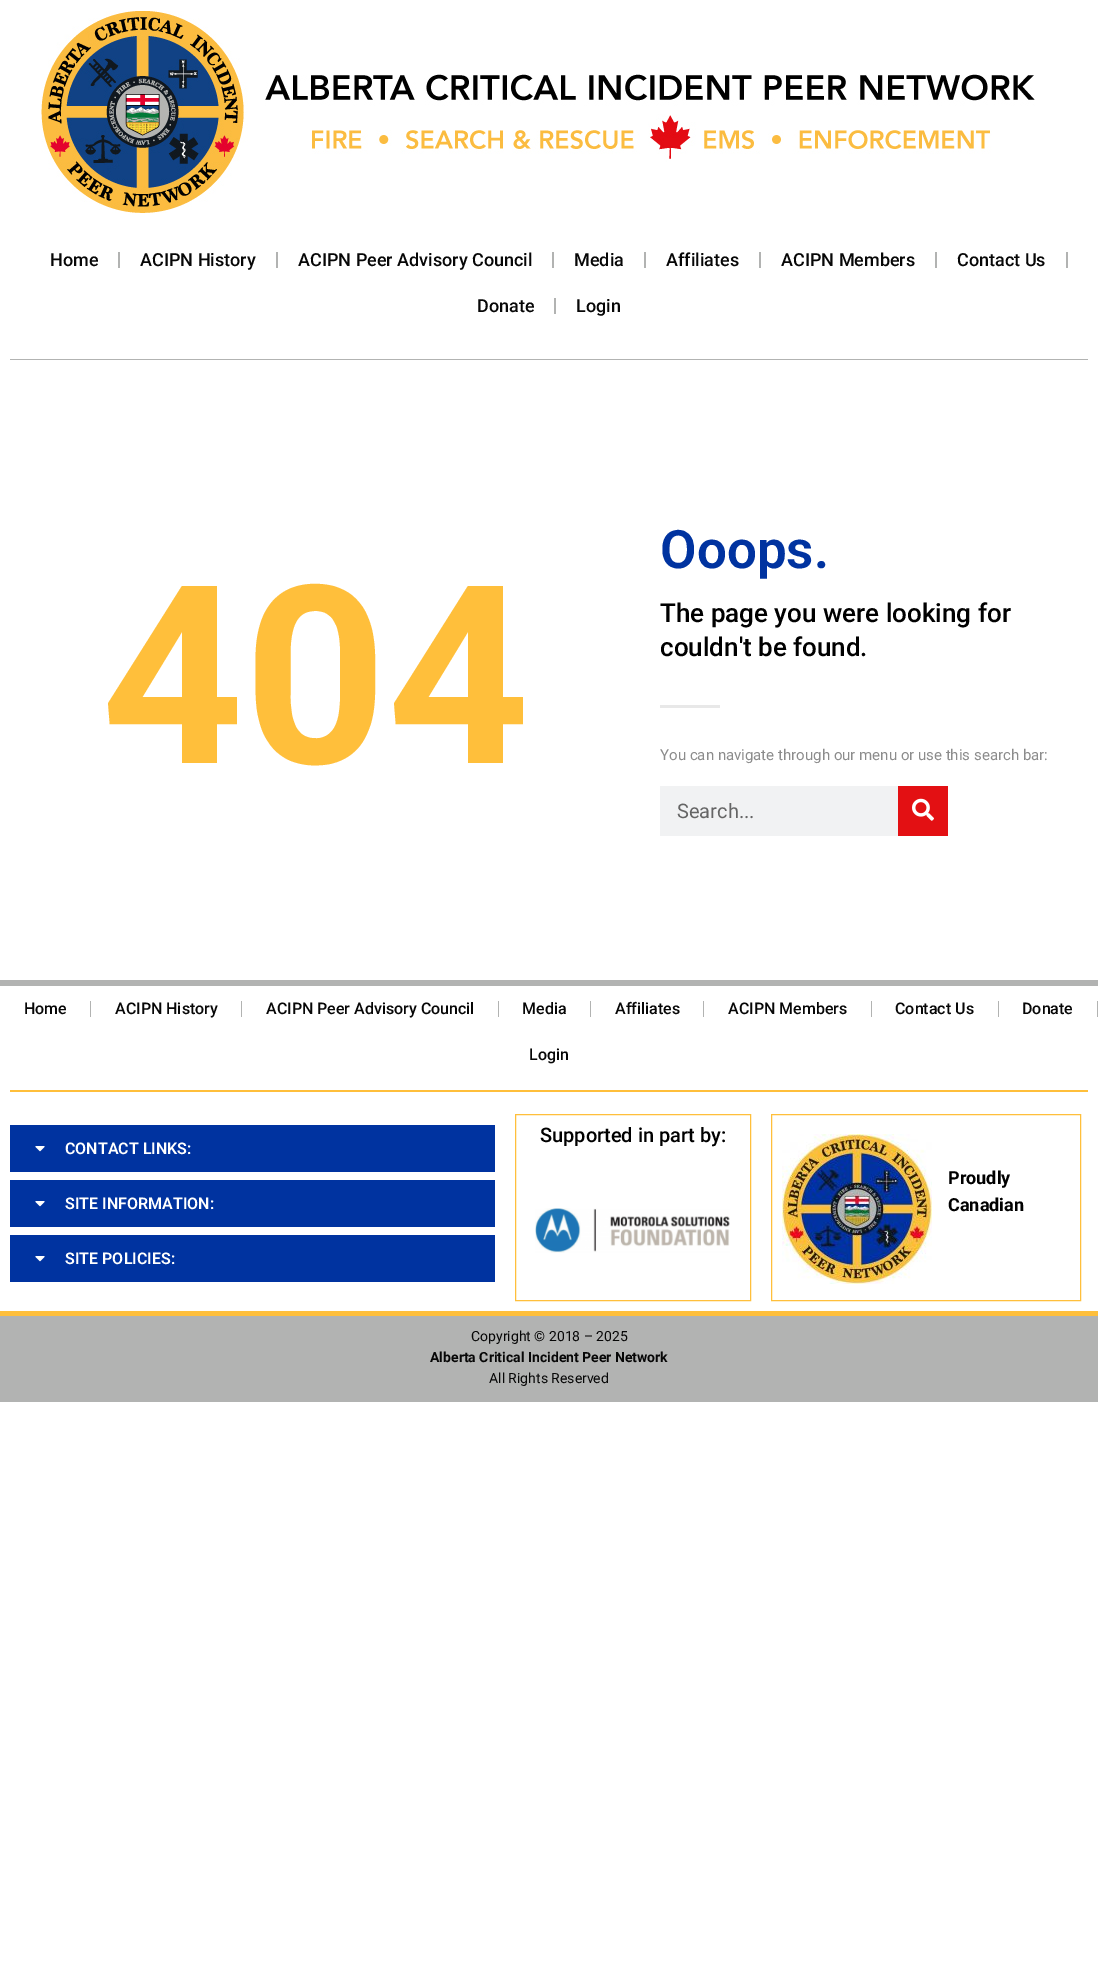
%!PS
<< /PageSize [1098 1976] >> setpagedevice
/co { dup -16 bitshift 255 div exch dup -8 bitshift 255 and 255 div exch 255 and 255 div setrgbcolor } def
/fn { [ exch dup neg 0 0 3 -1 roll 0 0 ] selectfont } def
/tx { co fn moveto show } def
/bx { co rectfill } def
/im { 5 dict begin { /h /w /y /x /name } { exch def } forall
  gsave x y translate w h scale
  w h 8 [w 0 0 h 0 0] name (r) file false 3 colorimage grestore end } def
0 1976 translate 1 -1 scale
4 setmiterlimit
0 0 1098 1976 16#FFFFFF bx
(media/1.raw) 41 11 994 202 im
118 252 2 16 16#B2B3B2 bx
276 252 2 16 16#B2B3B2 bx
552 252 2 16 16#B2B3B2 bx
644 252 2 16 16#B2B3B2 bx
759 252 2 16 16#B2B3B2 bx
935 252 2 16 16#B2B3B2 bx
1066 252 2 16 16#B2B3B2 bx
554 298 2 16 16#B2B3B2 bx
10 359 1078 1 16#B2B3B2 bx
660 705 60 3 16#E8E8E8 bx
660 786 238 50 16#F1F2F3 bx
898 786 50 50 16#E31013 bx
(media/2.raw) 912 798 22 23 im
0 980 1098 6 16#B2B3B2 bx
90 1001 1 16 16#B2B3B2 bx
241 1001 1 16 16#B2B3B2 bx
498 1001 1 16 16#B2B3B2 bx
590 1001 1 16 16#B2B3B2 bx
703 1001 1 16 16#B2B3B2 bx
871 1001 1 16 16#B2B3B2 bx
998 1001 1 16 16#B2B3B2 bx
1097 1001 1 16 16#B2B3B2 bx
10 1090 1078 2 16#FFBF3B bx
515.5 1114.5 235 186 rectstroke
(media/3.raw) 535 1208 195 45 im
10 1125 485 47 16#0033A0 bx
(media/4.raw) 35 1146 10 6 im
10 1180 485 47 16#0033A0 bx
(media/4.raw) 35 1201 10 6 im
10 1235 485 47 16#0033A0 bx
(media/4.raw) 35 1256 10 6 im
16#FFBF3B co
771.5 1114.5 309 186 rectstroke
(media/5.raw) 782 1134 150 150 im
0 1311 1098 5 16#FFBF3B bx
0 1316 1098 86 16#B2B3B2 bx
(Home) 50 266 /Roboto-Medium 18 16#070707 tx
(ACIPN History) 140 266 /Roboto-Medium 18 16#070707 tx
(ACIPN Peer Advisory Council) 298 266 /Roboto-Medium 18 16#070707 tx
(Media) 574 266 /Roboto-Medium 18 16#070707 tx
(Affiliates) 666 266 /Roboto-Medium 18 16#070707 tx
(ACIPN Members) 781 266 /Roboto-Medium 18 16#070707 tx
(Contact Us) 957 266 /Roboto-Medium 18 16#070707 tx
(Donate) 477 312 /Roboto-Medium 18 16#070707 tx
(Login) 576 312 /Roboto-Medium 18 16#070707 tx
(404) 101 763 /Roboto-Bold 249 16#FFBF3B tx
(Ooops.) 660 568 /Roboto-SemiBold 53 16#0033A0 tx
(The page you were looking for) 660 622 /Roboto-Medium 26 16#000000 tx
(couldn't be found.) 660 656 /Roboto-Medium 26 16#000000 tx
(You can navigate through our menu or use this search bar:) 660 760 /Roboto-Regular 15 16#8C8C8C tx
(Search...) 677 818 /Roboto-Regular 20 16#656565 tx
(Home) 24 1014 /Roboto-Medium 16 16#070707 tx
(ACIPN History) 115 1014 /Roboto-Medium 16 16#070707 tx
(ACIPN Peer Advisory Council) 266 1014 /Roboto-Medium 16 16#070707 tx
(Media) 522 1014 /Roboto-Medium 16 16#070707 tx
(Affiliates) 615 1014 /Roboto-Medium 16 16#070707 tx
(ACIPN Members) 728 1014 /Roboto-Medium 16 16#070707 tx
(Contact Us) 895 1014 /Roboto-Medium 16 16#070707 tx
(Donate) 1022 1014 /Roboto-Medium 16 16#070707 tx
(Login) 529 1060 /Roboto-Medium 16 16#070707 tx
(Supported in part by:) 540 1142 /Roboto-Medium 20 16#000000 tx
(CONTACT LINKS:) 65 1154 /Roboto-SemiBold 16 16#FFFFFF tx
(SITE INFORMATION:) 65 1209 /Roboto-SemiBold 16 16#FFFFFF tx
(SITE POLICIES:) 65 1264 /Roboto-SemiBold 16 16#FFFFFF tx
(Proudly) 948 1184 /Roboto-Bold 18 16#000000 tx
(Canadian) 948 1211 /Roboto-Bold 18 16#000000 tx
(Copyright © 2018 – 2025) 471 1341 /Roboto-Regular 14 16#070707 tx
(Alberta Critical Incident Peer Network) 430 1362 /Roboto-Bold 14 16#070707 tx
(All Rights Reserved) 489 1383 /Roboto-Regular 14 16#070707 tx
showpage
